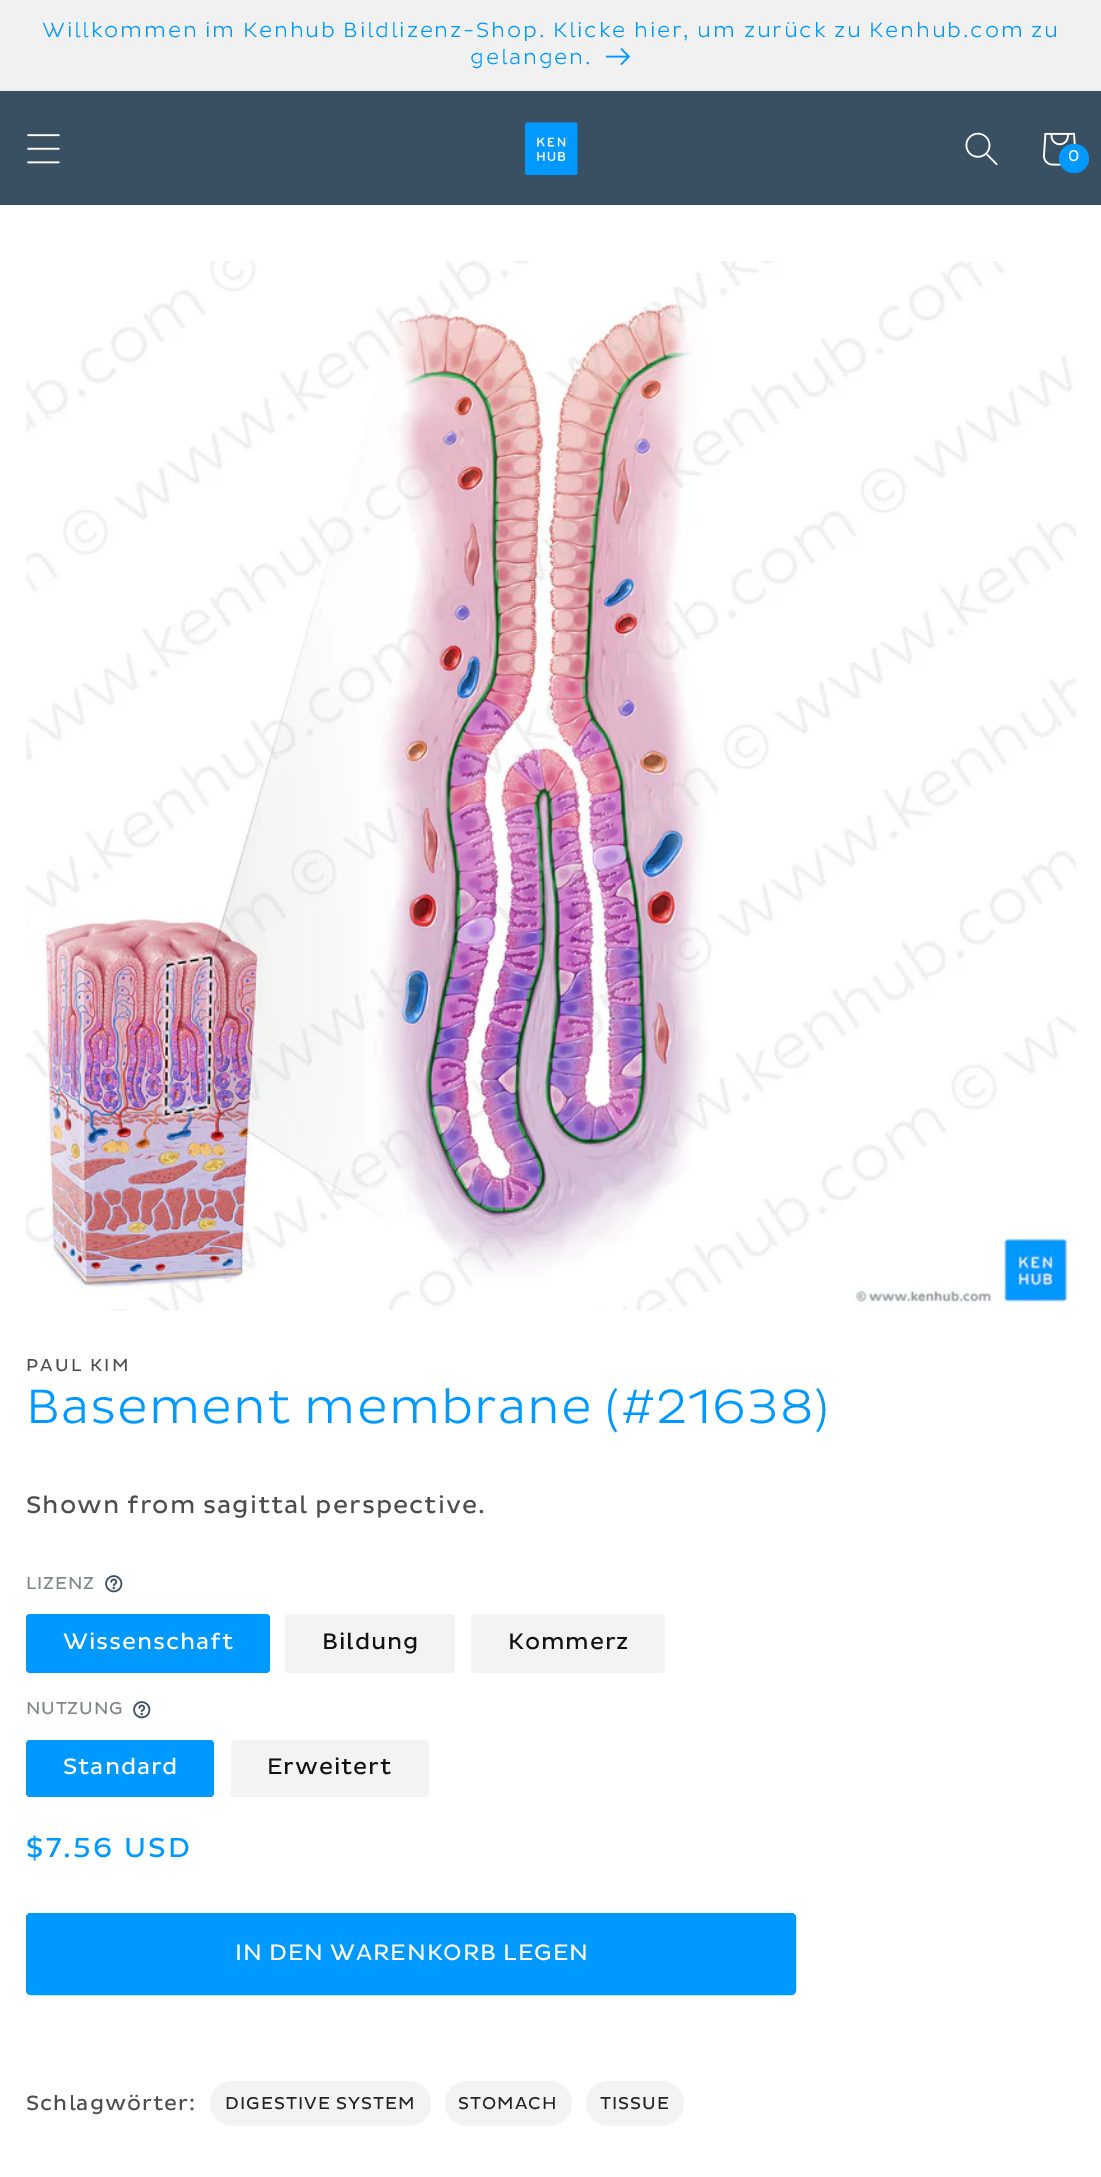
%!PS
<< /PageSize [1101 2177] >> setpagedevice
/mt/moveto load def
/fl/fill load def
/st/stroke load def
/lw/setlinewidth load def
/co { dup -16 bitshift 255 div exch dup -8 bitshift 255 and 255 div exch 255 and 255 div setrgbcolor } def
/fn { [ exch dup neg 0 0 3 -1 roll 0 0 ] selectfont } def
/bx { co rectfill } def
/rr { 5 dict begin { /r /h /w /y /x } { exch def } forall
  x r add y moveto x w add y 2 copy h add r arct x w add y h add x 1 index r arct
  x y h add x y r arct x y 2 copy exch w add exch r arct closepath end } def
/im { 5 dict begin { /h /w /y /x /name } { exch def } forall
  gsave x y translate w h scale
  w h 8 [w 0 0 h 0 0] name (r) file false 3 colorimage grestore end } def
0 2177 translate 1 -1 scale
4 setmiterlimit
0 0 1101 2177 16#FFFFFF bx
0 89 1101 2 16#ECECEC bx
0 0 1101 89 16#F1F1F1 bx
(media/1.raw) 606 48 24 17 im
0 91 1101 114 16#395062 bx
(media/2.raw) 27 134 33 30 im
(media/3.raw) 525 122 53 53 im
(media/4.raw) 965 132 33 34 im
(media/5.raw) 1043 132 33 34 im
16#0099FF co
1059 144 30 29 14.5 rr fl
(media/6.raw) 26 261 1050 1050 im
(media/7.raw) 105 1575 18 18 im
26 1614 244 59 4 rr fl
16#F3F3F3 co
285 1614 170 59 4 rr fl
471 1614 194 59 4 rr fl
(media/7.raw) 133 1701 18 18 im
16#0099FF co
26 1740 188 57 4 rr fl
16#F3F3F3 co
231 1740 198 57 4 rr fl
16#0099FF co
26 1913 770 82 5 rr fl
2 lw
27 1914 768 80 4 rr st
16#F3F3F3 co
210 2081 221 45 22.5 rr fl
445 2081 127 45 22.5 rr fl
586 2081 98 45 22.5 rr fl
/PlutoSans-Light 21 fn
16#0099FF co
42 37 mt 1.75 0 (Willkommen im Kenhub Bildlizenz-Shop. Klicke hier, um zurück zu Kenhub.com zu) ashow
470 64 mt 1.75 0 (gelangen.) ashow
/PlutoSans-Regular 16 fn
16#FFFFFF co
1068 161 mt 1.05 0 (0) ashow
/PlutoSans-Regular 17.5 fn
16#4D4D4D co
26 1371 mt 2.25 0 (PAUL KIM) ashow
/PlutoSans-Light 49 fn
16#0099FF co
26 1423 mt 1.05 0 (Basement membrane \(#21638\)) ashow
/PlutoSans-Regular 24.5 fn
16#4D4D4D co
26 1513 mt 1.05 0 (Shown from sagittal perspective.) ashow
/PlutoSans-Regular 17.5 fn
16#808788 co
26 1589 mt .75 0 (LIZENZ) ashow
/PlutoSans-Regular 22.75 fn
16#FFFFFF co
63 1649 mt .9 0 (Wissenschaft) ashow
16#121212 co
322 1649 mt .9 0 (Bildung) ashow
508 1649 mt .9 0 (Kommerz) ashow
/PlutoSans-Regular 17.5 fn
16#808788 co
26 1714 mt .75 0 (NUTZUNG) ashow
/PlutoSans-Regular 22.75 fn
16#FFFFFF co
63 1774 mt .9 0 (Standard) ashow
16#121212 co
267 1774 mt .9 0 (Erweitert) ashow
/PlutoSans-Regular 28 fn
16#0099FF co
26 1857 mt 2.25 0 ($7.56 USD) ashow
/PlutoSans-Regular 22.75 fn
16#FFFFFF co
235 1960 mt .9 0 (IN DEN WARENKORB LEGEN) ashow
/PlutoSans-Regular 21 fn
16#4D4D4D co
26 2110 mt 1.05 0 (Schlagwörter:) ashow
/PlutoSans-Regular 17.5 fn
16#222222 co
225 2109 mt 1.05 0 (DIGESTIVE SYSTEM) ashow
458 2109 mt 1.05 0 (STOMACH) ashow
600 2109 mt 1.05 0 (TISSUE) ashow
showpage
